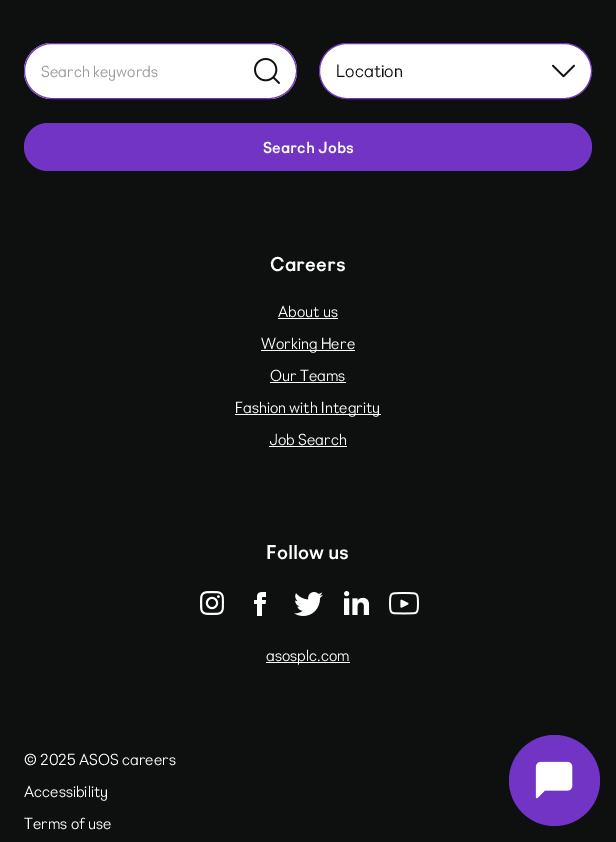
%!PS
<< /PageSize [616 842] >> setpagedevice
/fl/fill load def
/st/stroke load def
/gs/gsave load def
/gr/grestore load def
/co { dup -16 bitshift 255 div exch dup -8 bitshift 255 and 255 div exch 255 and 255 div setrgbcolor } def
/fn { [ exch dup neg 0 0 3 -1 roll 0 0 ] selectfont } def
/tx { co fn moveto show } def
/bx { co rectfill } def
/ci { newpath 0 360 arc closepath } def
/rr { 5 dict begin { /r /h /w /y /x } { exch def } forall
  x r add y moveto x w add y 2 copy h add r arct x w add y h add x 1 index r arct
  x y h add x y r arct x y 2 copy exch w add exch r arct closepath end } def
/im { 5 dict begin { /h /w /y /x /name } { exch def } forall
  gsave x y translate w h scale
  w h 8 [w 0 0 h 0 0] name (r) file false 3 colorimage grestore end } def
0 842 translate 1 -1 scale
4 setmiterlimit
0 0 616 842 16#0E0F0F bx
16#FFFFFF co
24 43 273 56 28 rr fl
(media/1.raw) 254 58 26 26 im
16#7134C4 co
24.5 43.5 272 55 27.5 rr st
16#FFFFFF co
319.5 43.5 272 55 27.5 rr gs fl gr
16#7134C4 co
st
(media/2.raw) 552 64 23 14 im
24 123 568 48 24 rr fl
278 318 60 1 16#FFFFFF bx
261 350 94 1 16#FFFFFF bx
270 382 76 1 16#FFFFFF bx
235 414 146 1 16#FFFFFF bx
269 446 78 1 16#FFFFFF bx
(media/3.raw) 200 591 24 24 im
(media/4.raw) 254 592 12 24 im
(media/5.raw) 294 592 29 24 im
(media/6.raw) 344 591 26 24 im
(media/7.raw) 389 592 30 23 im
266 662 84 1 16#FFFFFF bx
16#7134C4 co
554.5 780.5 45.5 ci fl
(media/8.raw) 535 761 38 38 im
(Search keywords) 41 77 /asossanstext-Light 16 16#999999 tx
(Location) 336 77 /asossanstext-Light 18 16#0E0F0F tx
(Search Jobs) 263 153 /asossanstext-Regular 16 16#FFFFFF tx
(Careers) 270 271 /asossanstext-Regular 20 16#FFFFFF tx
(About us) 278 317 /asossanstext-Light 16 16#FFFFFF tx
(Working Here) 261 349 /asossanstext-Light 16 16#FFFFFF tx
(Our Teams) 270 381 /asossanstext-Light 16 16#FFFFFF tx
(Fashion with Integrity) 235 413 /asossanstext-Light 16 16#FFFFFF tx
(Job Search) 269 445 /asossanstext-Light 16 16#FFFFFF tx
(Follow us) 266 559 /asossanstext-Regular 20 16#FFFFFF tx
(asosplc.com) 266 661 /asossanstext-Light 16 16#FFFFFF tx
(© 2025 ASOS careers) 24 765 /asossanstext-Light 16 16#FFFFFF tx
(Accessibility) 24 797 /asossanstext-Light 16 16#FFFFFF tx
(Terms of use) 24 829 /asossanstext-Light 16 16#FFFFFF tx
showpage
